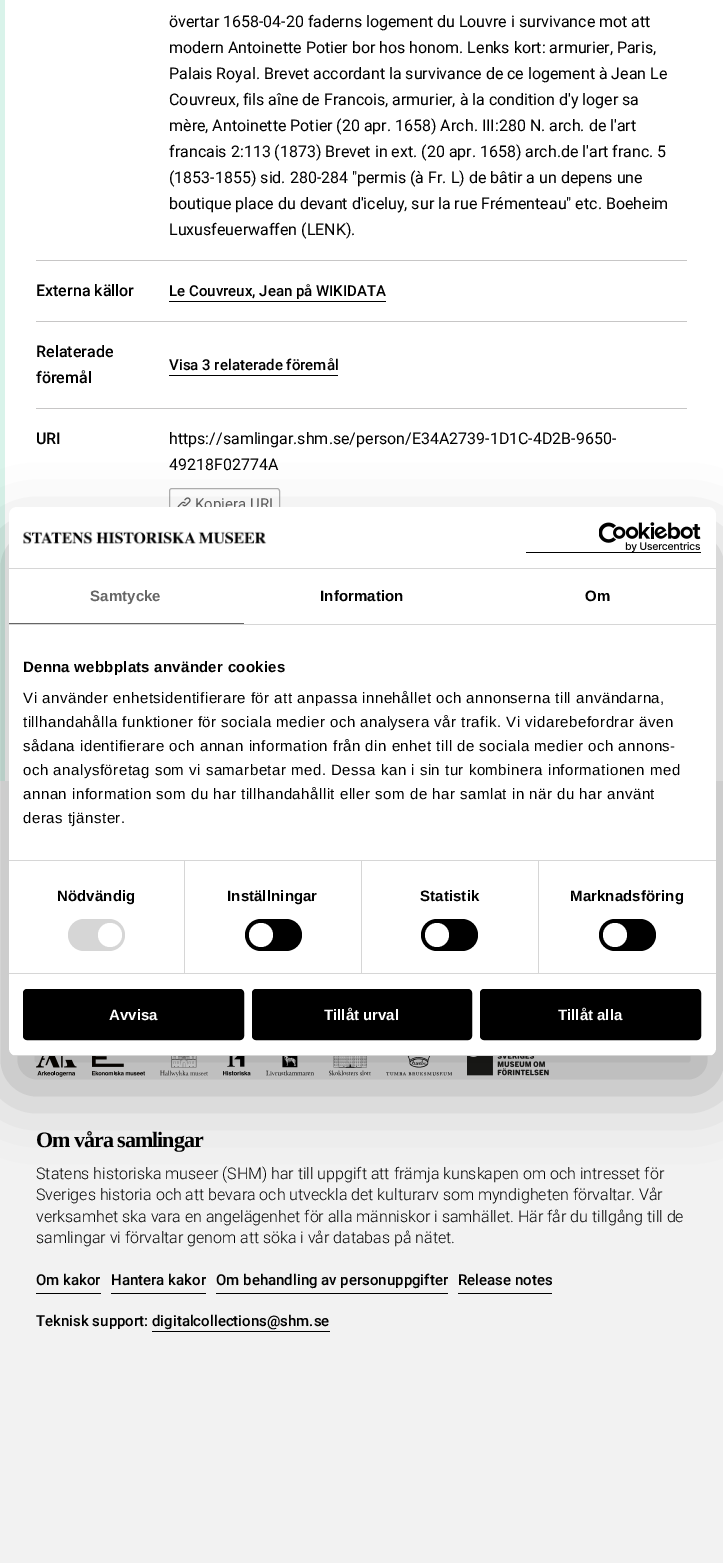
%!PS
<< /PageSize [723 1563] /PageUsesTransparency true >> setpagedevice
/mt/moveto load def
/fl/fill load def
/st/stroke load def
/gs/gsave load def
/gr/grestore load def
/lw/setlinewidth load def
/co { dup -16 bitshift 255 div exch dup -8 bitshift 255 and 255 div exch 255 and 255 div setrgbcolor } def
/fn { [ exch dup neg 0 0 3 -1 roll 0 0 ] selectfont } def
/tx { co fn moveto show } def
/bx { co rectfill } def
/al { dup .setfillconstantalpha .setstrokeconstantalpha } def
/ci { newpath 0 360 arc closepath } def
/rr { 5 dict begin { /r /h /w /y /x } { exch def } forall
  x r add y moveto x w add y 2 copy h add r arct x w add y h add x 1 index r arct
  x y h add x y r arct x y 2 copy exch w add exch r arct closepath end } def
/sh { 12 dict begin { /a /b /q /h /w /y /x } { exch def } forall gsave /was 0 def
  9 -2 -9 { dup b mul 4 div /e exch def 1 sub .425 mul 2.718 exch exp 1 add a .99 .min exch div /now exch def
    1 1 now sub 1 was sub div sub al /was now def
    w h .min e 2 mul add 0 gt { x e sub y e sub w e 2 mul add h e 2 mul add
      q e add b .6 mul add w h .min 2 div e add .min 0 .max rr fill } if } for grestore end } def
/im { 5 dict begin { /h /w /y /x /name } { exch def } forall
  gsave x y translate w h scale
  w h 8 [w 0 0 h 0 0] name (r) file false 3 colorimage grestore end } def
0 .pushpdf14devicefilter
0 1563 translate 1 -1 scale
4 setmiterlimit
0 0 723 1563 16#FFFFFF bx
0 0 5 781 16#D9F3EA bx
36 260 651 1 16#C7C6C6 bx
36 321 651 1 16#C7C6C6 bx
169 301 217 1 16#000000 bx
36 408 651 1 16#C7C6C6 bx
169 375 169 1 16#000000 bx
16#AFAFAF co
169.5 488.5 110 31 2.5 rr st
(media/1.raw) 177 497 14 10 im
0 781 723 782 16#F2F2F2 bx
(media/2.raw) 36 1056 41 21 im
(media/3.raw) 92 1056 53 20 im
(media/4.raw) 160 1056 48 21 im
(media/5.raw) 223 1056 28 20 im
(media/6.raw) 266 1056 48 20 im
(media/7.raw) 329 1056 42 20 im
(media/8.raw) 386 1056 66 20 im
(media/9.raw) 467 1056 82 20 im
36 1293 65 1 16#000000 bx
111 1293 95 1 16#000000 bx
216 1293 232 1 16#000000 bx
458 1293 94 1 16#000000 bx
152 1331 178 1 16#000000 bx
9 539 707 549 8 34 .3 sh
(övertar 1658-04-20 faderns logement du Louvre i survivance mot att) 169 27 /Roboto-Regular 16 16#000000 tx
(modern Antoinette Potier bor hos honom. Lenks kort: armurier, Paris,) 169 53 /Roboto-Regular 16 16#000000 tx
(Palais Royal. Brevet accordant la survivance de ce logement à Jean Le) 169 79 /Roboto-Regular 16 16#000000 tx
(Couvreux, fils aîne de Francois, armurier, à la condition d'y loger sa) 169 105 /Roboto-Regular 16 16#000000 tx
(mère, Antoinette Potier \(20 apr. 1658\) Arch. III:280 N. arch. de l'art) 169 131 /Roboto-Regular 16 16#000000 tx
(francais 2:113 \(1873\) Brevet in ext. \(20 apr. 1658\) arch.de l'art franc. 5) 169 157 /Roboto-Regular 16 16#000000 tx
(\(1853-1855\) sid. 280-284 "permis \(à Fr. L\) de bâtir a un depens une) 169 183 /Roboto-Regular 16 16#000000 tx
(boutique place du devant d'iceluy, sur la rue Frémenteau" etc. Boeheim) 169 209 /Roboto-Regular 16 16#000000 tx
(Luxusfeuerwaffen \(LENK\).) 169 235 /Roboto-Regular 16 16#000000 tx
(Externa källor) 36 296 /Roboto-Medium 16 16#000000 tx
(Le Couvreux, Jean på WIKIDATA) 169 296 /Roboto-Medium 15 16#000000 tx
(Relaterade) 36 357 /Roboto-Medium 16 16#000000 tx
(föremål) 36 383 /Roboto-Medium 16 16#000000 tx
(Visa 3 relaterade föremål) 169 370 /Roboto-Medium 15 16#000000 tx
(URI) 36 444 /Roboto-Medium 16 16#000000 tx
(https://samlingar.shm.se/person/E34A2739-1D1C-4D2B-9650-) 169 444 /Roboto-Regular 16 16#000000 tx
(49218F02774A) 169 470 /Roboto-Regular 16 16#000000 tx
(Kopiera URI) 195 509 /Roboto-Regular 15 16#5C5C5C tx
/LiberationSerif-Bold 22 fn
16#000000 co
36 1147 mt -1 0 (Om våra samlingar) ashow
(Statens historiska museer \(SHM\) har till uppgift att främja kunskapen om och intresset för) 36 1179 /Roboto-Light 16 16#000000 tx
(Sveriges historia och att bevara och utveckla det kulturarv som myndigheten förvaltar. Vår) 36 1200 /Roboto-Light 16 16#000000 tx
(verksamhet ska vara en angelägenhet för alla människor i samhället. Här får du tillgång till de) 36 1222 /Roboto-Light 16 16#000000 tx
(samlingar vi förvaltar genom att söka i vår databas på nätet.) 36 1243 /Roboto-Light 16 16#000000 tx
(Om kakor) 36 1285 /Roboto-Medium 15 16#000000 tx
(Hantera kakor) 111 1285 /Roboto-Medium 15 16#000000 tx
(Om behandling av personuppgifter) 216 1285 /Roboto-Medium 15 16#000000 tx
(Release notes) 458 1285 /Roboto-Medium 15 16#000000 tx
(Teknisk support: digitalcollections@shm.se) 36 1326 /Roboto-Medium 15 16#000000 tx
16#FFFFFF co
9 507 707 549 8 rr fl
9 568 707 1 16#D6D6D6 bx
(media/10.raw) 23 531 244 14 im
526 552 175 1 16#000000 bx
(media/11.raw) 599 522 102 30 im
9 624 707 1 16#D6D6D6 bx
9 623 235 1 16#666666 bx
/LiberationSans-Bold 15 fn
90 601 mt .1 0 (Samtycke) ashow
16#000000 co
320 601 mt .1 0 (Information) ashow
585 601 mt .1 0 (Om) ashow
9 860 707 1 16#D6D6D6 bx
16#000000 co
23 672 mt .25 0 (Denna webbplats använder cookies) ashow
/LiberationSans-Regular 15 fn
23 703 mt .5 0 (Vi använder enhetsidentifierare för att anpassa innehållet och annonserna till användarna,) ashow
23 727 mt .5 0 (tillhandahålla funktioner för sociala medier och analysera vår trafik. Vi vidarebefordrar även) ashow
23 751 mt .5 0 (sådana identifierare och annan information från din enhet till de sociala medier och annons-) ashow
23 775 mt .5 0 (och analysföretag som vi samarbetar med. Dessa kan i sin tur kombinera informationen med) ashow
23 799 mt .5 0 (annan information som du har tillhandahållit eller som de har samlat in när du har använt) ashow
23 823 mt .5 0 (deras tjänster.) ashow
9 973 707 1 16#D6D6D6 bx
184 861 1 112 16#D6D6D6 bx
/LiberationSans-Bold 15 fn
16#000000 co
57 901 mt .1 0 (Nödvändig) ashow
16#D6D6D6 co
68 919 57 32 16 rr fl
16#FFFFFF co
110 935 12 ci fl
361 861 1 112 16#D6D6D6 bx
16#000000 co
227 901 mt .1 0 (Inställningar) ashow
245 919 57 32 16 rr fl
16#FFFFFF co
261 935 12 ci fl
538 861 1 112 16#D6D6D6 bx
16#000000 co
420 901 mt .1 0 (Statistik) ashow
421 919 57 32 16 rr fl
16#FFFFFF co
437 935 12 ci fl
16#000000 co
570 901 mt .1 0 (Marknadsföring) ashow
599 919 57 32 16 rr fl
16#FFFFFF co
615 935 12 ci fl
gs
9 507 707 549 8 rr clip newpath
9 1055 707 1 16#D6D6D6 bx
gr
16#000000 co
24 990 219 49 3 rr gs fl gr
2 lw
st
(Avvisa) 109 1020 /LiberationSans-Bold 15 16#FFFFFF tx
16#000000 co
253 990 218 49 3 rr gs fl gr
st
(Tillåt urval) 324 1020 /LiberationSans-Bold 15 16#FFFFFF tx
16#000000 co
481 990 219 49 3 rr gs fl gr
st
(Tillåt alla) 558 1020 /LiberationSans-Bold 15 16#FFFFFF tx
.poppdf14devicefilter showpage
